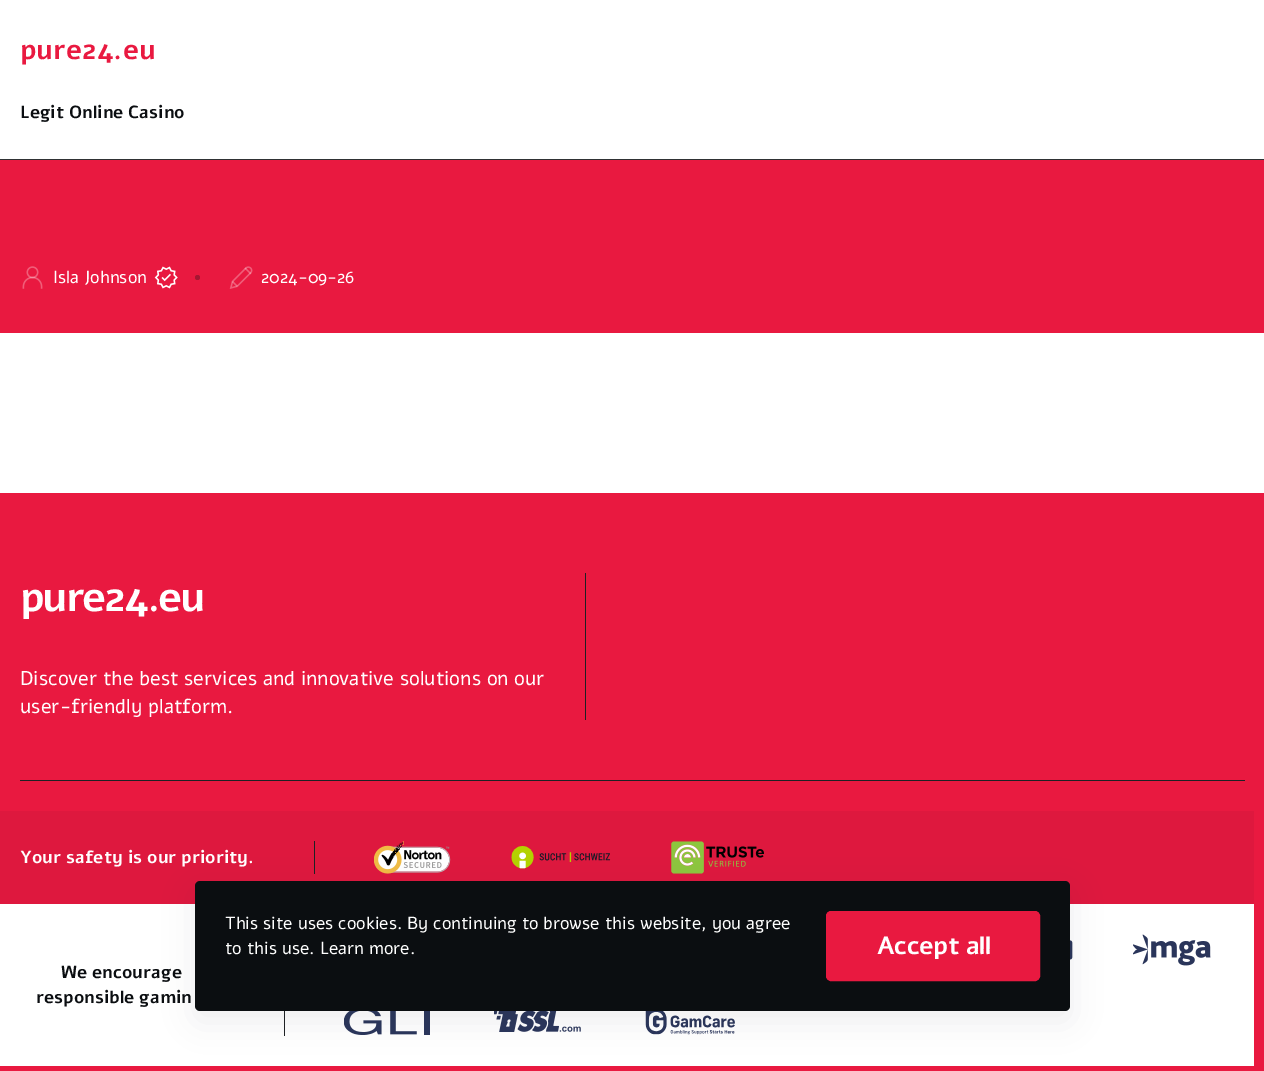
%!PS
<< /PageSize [1264 1071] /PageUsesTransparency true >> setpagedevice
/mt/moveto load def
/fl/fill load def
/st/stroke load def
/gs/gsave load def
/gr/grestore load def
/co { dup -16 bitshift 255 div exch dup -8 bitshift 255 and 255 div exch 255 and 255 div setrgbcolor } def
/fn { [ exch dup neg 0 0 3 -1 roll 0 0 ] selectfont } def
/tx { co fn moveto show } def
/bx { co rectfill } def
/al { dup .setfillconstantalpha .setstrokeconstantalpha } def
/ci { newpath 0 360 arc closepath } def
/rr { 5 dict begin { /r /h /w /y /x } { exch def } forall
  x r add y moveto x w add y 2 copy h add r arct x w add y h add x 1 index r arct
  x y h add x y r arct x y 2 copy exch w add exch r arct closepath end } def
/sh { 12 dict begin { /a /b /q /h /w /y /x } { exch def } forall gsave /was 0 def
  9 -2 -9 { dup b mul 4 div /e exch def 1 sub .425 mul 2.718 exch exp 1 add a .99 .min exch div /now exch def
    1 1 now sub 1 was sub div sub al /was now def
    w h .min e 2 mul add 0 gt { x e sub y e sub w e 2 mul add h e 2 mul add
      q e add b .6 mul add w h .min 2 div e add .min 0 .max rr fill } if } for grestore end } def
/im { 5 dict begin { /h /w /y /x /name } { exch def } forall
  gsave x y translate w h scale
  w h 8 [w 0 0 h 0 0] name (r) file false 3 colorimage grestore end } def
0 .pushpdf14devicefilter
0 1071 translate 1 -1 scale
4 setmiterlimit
0 0 1264 1071 16#FFFFFF bx
0 159 1264 1 16#2F3234 bx
0 160 1264 173 16#E91940 bx
(media/1.raw) 22 266 21 23 im
(media/2.raw) 154 266 24 23 im
16#A61632 co
197.5 277.5 2.5 ci fl
(media/3.raw) 229 266 24 23 im
0 493 1264 578 16#E91940 bx
585 573 1 147 16#1E2124 bx
20 780 1225 1 16#1E2124 bx
0 811 1254 93 16#DE183E bx
314 841 1 33 16#1E2124 bx
(media/4.raw) 374 841 77 33 im
(media/5.raw) 511 846 100 23 im
(media/6.raw) 671 841 93 33 im
0 904 1254 162 16#FFFFFF bx
(media/7.raw) 1070 940 3 20 im
(media/8.raw) 1133 934 78 32 im
284 1011 1 25 16#1E2124 bx
(media/9.raw) 344 1011 86 24 im
(media/10.raw) 494 1011 87 21 im
(media/11.raw) 645 1011 90 24 im
16#1B223A co
195 891 875 130 5 15 .07 sh
16#0B0E11 co
195 881 875 130 5 rr fl
16#E91940 co
826.5 911.5 213 69 4.5 rr gs fl gr
st
(pure24.eu) 20 59 /Alef-Bold 27.5 16#E91940 tx
(Legit Online Casino) 20 118 /Alef-Bold 17.5 16#0B0E11 tx
(Isla Johnson) 53 283 /Alef-Regular 17.5 16#FFFFFF tx
(2024-09-26) 261 283 /Alef-Regular 17.5 16#FFFFFF tx
/Alef-Bold 41.25 fn
20 611 mt -2.25 0 (pure24.eu) ashow
(Discover the best services and innovative solutions on our) 20 685 /Alef-Regular 20 16#FFFFFF tx
(user-friendly platform.) 20 713 /Alef-Regular 20 16#FFFFFF tx
(Your safety is our priority.) 20 863 /Alef-Bold 17.5 16#FFFFFF tx
(We encourage) 61 978 /Alef-Bold 17.5 16#0B0E11 tx
(responsible gamin) 36 1003 /Alef-Bold 17.5 16#0B0E11 tx
(This site uses cookies. By continuing to browse this website, you agree) 225 929 /Alef-Regular 17.5 16#FFFFFF tx
(to this use. Learn more.) 225 954 /Alef-Regular 17.5 16#FFFFFF tx
/Alef-Bold 25 fn
877 954 mt -.5 0 (Accept all) ashow
.poppdf14devicefilter showpage
